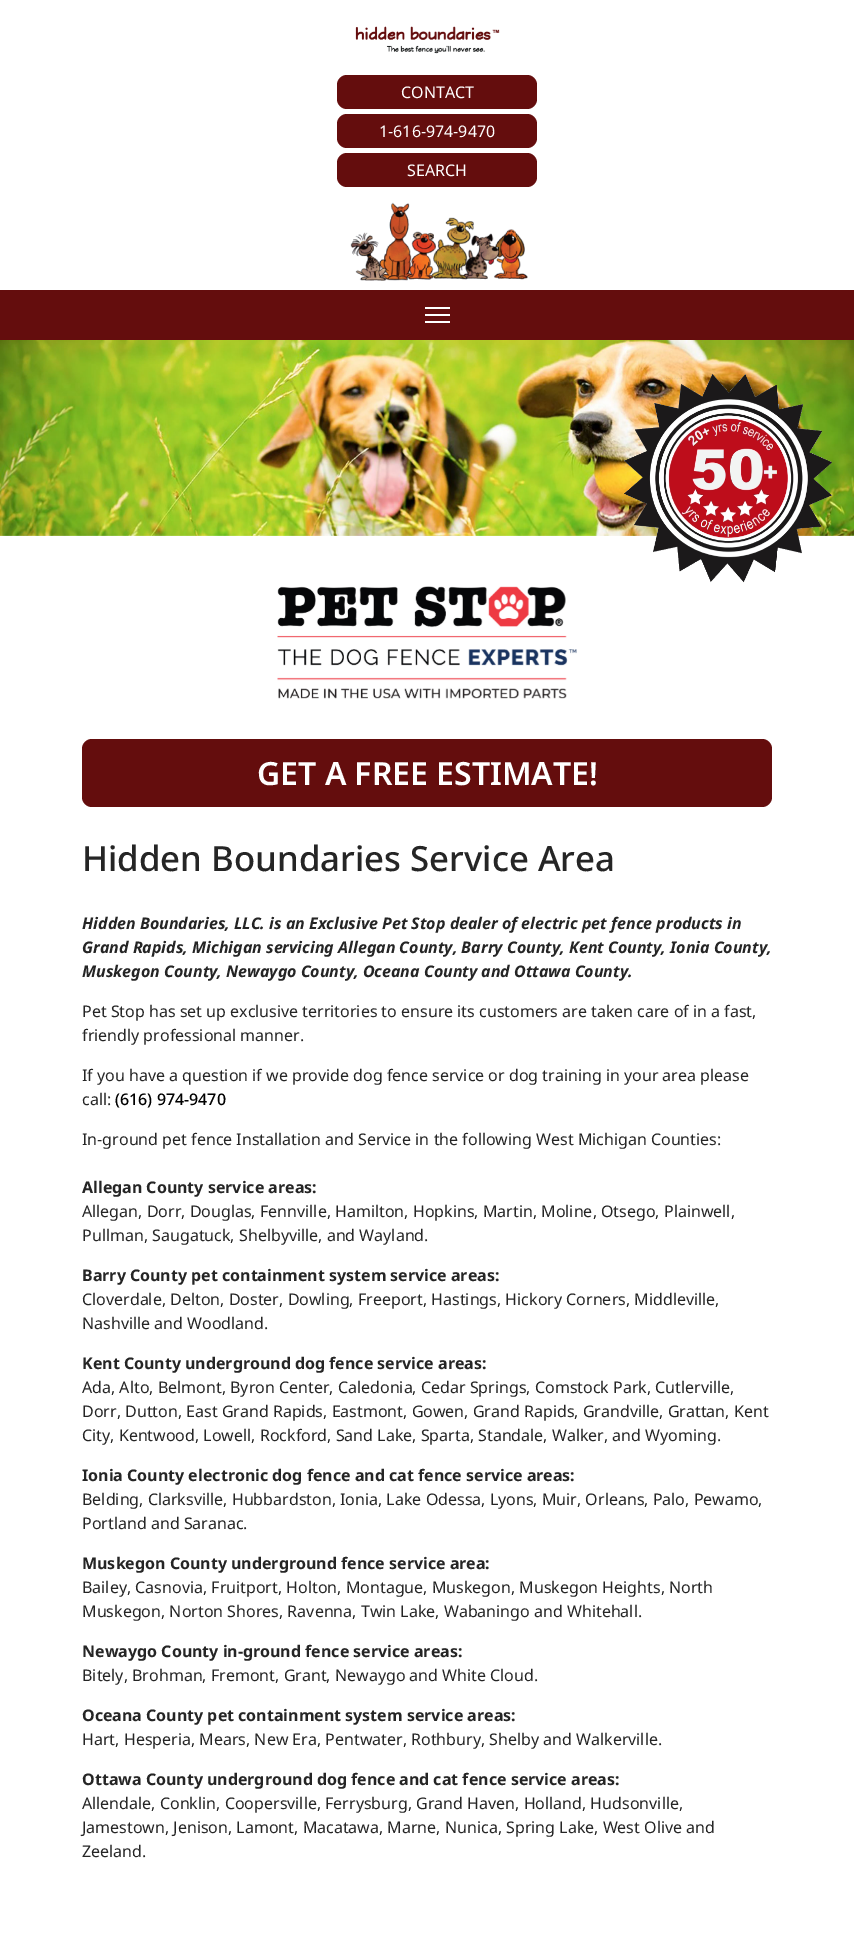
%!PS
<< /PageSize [854 1952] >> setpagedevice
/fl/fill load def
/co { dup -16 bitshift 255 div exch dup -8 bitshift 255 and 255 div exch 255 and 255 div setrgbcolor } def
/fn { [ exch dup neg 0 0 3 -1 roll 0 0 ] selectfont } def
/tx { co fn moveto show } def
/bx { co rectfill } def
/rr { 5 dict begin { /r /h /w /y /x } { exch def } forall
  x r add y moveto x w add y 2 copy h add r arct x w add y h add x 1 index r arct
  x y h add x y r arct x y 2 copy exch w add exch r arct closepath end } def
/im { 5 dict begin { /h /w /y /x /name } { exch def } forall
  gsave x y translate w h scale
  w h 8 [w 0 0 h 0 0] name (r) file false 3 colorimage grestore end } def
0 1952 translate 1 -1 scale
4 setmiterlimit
0 0 854 1952 16#FFFFFF bx
(media/1.raw) 355 26 145 28 im
16#640D0D co
337 75 200 34 10 rr fl
337 114 200 34 10 rr fl
337 153 200 34 10 rr fl
(media/2.raw) 350 202 178 79 im
0 290 854 50 16#640D0D bx
425 307 25 2 16#FFFFFF bx
425 314 25 2 16#FFFFFF bx
425 321 25 2 16#FFFFFF bx
(media/3.raw) 0 340 854 196 im
(media/4.raw) 607 360 225 223 im
(media/5.raw) 277 586 300 113 im
16#640D0D co
82 739 690 68 10 rr fl
(CONTACT) 401 98 /NotoSans-Regular 16 16#FFFFFF tx
(1-616-974-9470) 379 137 /NotoSans-Regular 16 16#FFFFFF tx
(SEARCH) 407 176 /NotoSans-Regular 16 16#FFFFFF tx
(GET A FREE ESTIMATE!) 257 785 /NotoSans-SemiBold 32 16#FFFFFF tx
(Hidden Boundaries Service Area) 82 871 /NotoSans-Medium 34.75 16#252525 tx
(Hidden Boundaries, LLC. is an Exclusive Pet Stop dealer of electric pet fence products in) 82 929 /NotoSans-BoldItalic 16 16#252525 tx
(Grand Rapids, Michigan servicing Allegan County, Barry County, Kent County, Ionia County,) 82 953 /NotoSans-BoldItalic 16 16#252525 tx
(Muskegon County, Newaygo County, Oceana County and Ottawa County.) 82 977 /NotoSans-BoldItalic 16 16#252525 tx
(Pet Stop has set up exclusive territories to ensure its customers are taken care of in a fast,) 82 1017 /NotoSans-Regular 16 16#252525 tx
(friendly professional manner.) 82 1041 /NotoSans-Regular 16 16#252525 tx
(If you have a question if we provide dog fence service or dog training in your area please) 82 1081 /NotoSans-Regular 16 16#252525 tx
(call:) 82 1105 /NotoSans-Regular 16 16#252525 tx
(\(616\) 974-9470) 115 1105 /NotoSans-Medium 16 16#000000 tx
(In-ground pet fence Installation and Service in the following West Michigan Counties:) 82 1145 /NotoSans-Regular 16 16#252525 tx
(Allegan County service areas:) 82 1193 /NotoSans-Bold 16 16#252525 tx
(Allegan, Dorr, Douglas, Fennville, Hamilton, Hopkins, Martin, Moline, Otsego, Plainwell,) 82 1217 /NotoSans-Regular 16 16#252525 tx
(Pullman, Saugatuck, Shelbyville, and Wayland.) 82 1241 /NotoSans-Regular 16 16#252525 tx
(Barry County pet containment system service areas:) 82 1281 /NotoSans-Bold 16 16#252525 tx
(Cloverdale, Delton, Doster, Dowling, Freeport, Hastings, Hickory Corners, Middleville,) 82 1305 /NotoSans-Regular 16 16#252525 tx
(Nashville and Woodland.) 82 1329 /NotoSans-Regular 16 16#252525 tx
(Kent County underground dog fence service areas:) 82 1369 /NotoSans-Bold 16 16#252525 tx
(Ada, Alto, Belmont, Byron Center, Caledonia, Cedar Springs, Comstock Park, Cutlerville,) 82 1393 /NotoSans-Regular 16 16#252525 tx
(Dorr, Dutton, East Grand Rapids, Eastmont, Gowen, Grand Rapids, Grandville, Grattan, Kent) 82 1417 /NotoSans-Regular 16 16#252525 tx
(City, Kentwood, Lowell, Rockford, Sand Lake, Sparta, Standale, Walker, and Wyoming.) 82 1441 /NotoSans-Regular 16 16#252525 tx
(Ionia County electronic dog fence and cat fence service areas:) 82 1481 /NotoSans-Bold 16 16#252525 tx
(Belding, Clarksville, Hubbardston, Ionia, Lake Odessa, Lyons, Muir, Orleans, Palo, Pewamo,) 82 1505 /NotoSans-Regular 16 16#252525 tx
(Portland and Saranac.) 82 1529 /NotoSans-Regular 16 16#252525 tx
(Muskegon County underground fence service area:) 82 1569 /NotoSans-Bold 16 16#252525 tx
(Bailey, Casnovia, Fruitport, Holton, Montague, Muskegon, Muskegon Heights, North) 82 1593 /NotoSans-Regular 16 16#252525 tx
(Muskegon, Norton Shores, Ravenna, Twin Lake, Wabaningo and Whitehall.) 82 1617 /NotoSans-Regular 16 16#252525 tx
(Newaygo County in-ground fence service areas:) 82 1657 /NotoSans-Bold 16 16#252525 tx
(Bitely, Brohman, Fremont, Grant, Newaygo and White Cloud.) 82 1681 /NotoSans-Regular 16 16#252525 tx
(Oceana County pet containment system service areas:) 82 1721 /NotoSans-Bold 16 16#252525 tx
(Hart, Hesperia, Mears, New Era, Pentwater, Rothbury, Shelby and Walkerville.) 82 1745 /NotoSans-Regular 16 16#252525 tx
(Ottawa County underground dog fence and cat fence service areas:) 82 1785 /NotoSans-Bold 16 16#252525 tx
(Allendale, Conklin, Coopersville, Ferrysburg, Grand Haven, Holland, Hudsonville,) 82 1809 /NotoSans-Regular 16 16#252525 tx
(Jamestown, Jenison, Lamont, Macatawa, Marne, Nunica, Spring Lake, West Olive and) 82 1833 /NotoSans-Regular 16 16#252525 tx
(Zeeland.) 82 1857 /NotoSans-Regular 16 16#252525 tx
showpage
